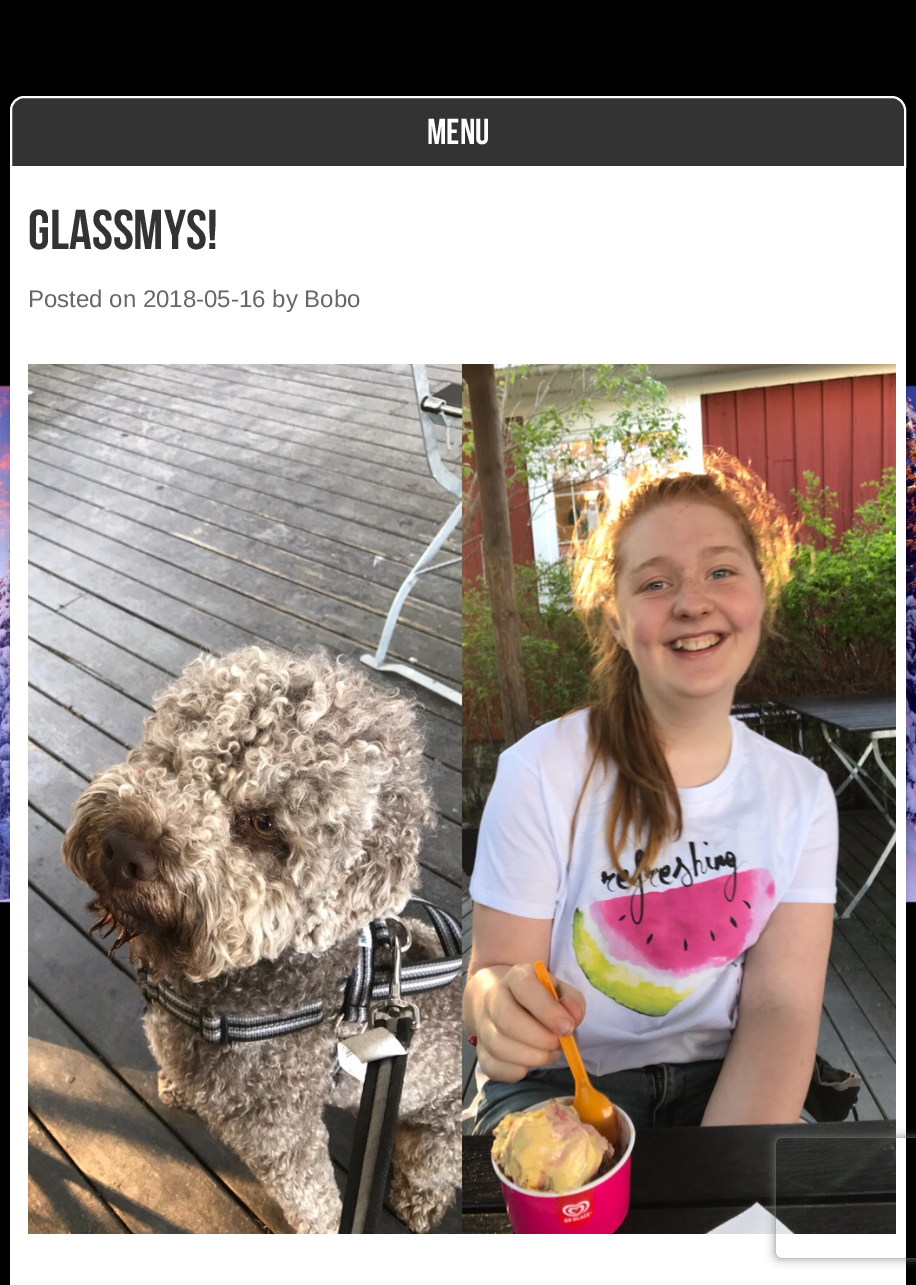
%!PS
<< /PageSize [916 1285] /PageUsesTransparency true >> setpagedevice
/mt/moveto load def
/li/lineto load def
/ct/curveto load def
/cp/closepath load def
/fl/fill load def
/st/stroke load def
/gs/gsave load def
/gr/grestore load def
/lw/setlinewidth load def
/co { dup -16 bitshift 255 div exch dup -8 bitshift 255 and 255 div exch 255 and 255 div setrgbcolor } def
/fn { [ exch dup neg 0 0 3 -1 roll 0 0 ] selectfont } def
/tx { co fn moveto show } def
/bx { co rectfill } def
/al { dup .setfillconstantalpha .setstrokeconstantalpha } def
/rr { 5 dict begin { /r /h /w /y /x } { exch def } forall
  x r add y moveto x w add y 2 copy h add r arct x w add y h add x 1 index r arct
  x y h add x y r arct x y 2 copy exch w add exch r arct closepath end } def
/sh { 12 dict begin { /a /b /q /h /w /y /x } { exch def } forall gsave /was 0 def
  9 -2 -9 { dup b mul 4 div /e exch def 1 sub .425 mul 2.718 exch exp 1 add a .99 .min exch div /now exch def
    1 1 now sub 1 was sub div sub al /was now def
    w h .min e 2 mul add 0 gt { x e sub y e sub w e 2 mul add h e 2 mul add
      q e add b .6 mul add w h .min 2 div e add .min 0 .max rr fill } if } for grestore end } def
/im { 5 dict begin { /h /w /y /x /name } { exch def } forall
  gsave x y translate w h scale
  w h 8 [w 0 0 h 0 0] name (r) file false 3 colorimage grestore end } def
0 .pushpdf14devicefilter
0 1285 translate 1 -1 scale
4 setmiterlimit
0 0 916 1285 16#000000 bx
(media/1.raw) 0 385 916 518 im
16#333333 co
24 97 mt 892 97 li 899 97 905 103 905 110 ct 905 167 li 11 167 li 11 110 li 11 103 17 97 24 97 ct cp gs fl gr
16#FFFFFF co
2 lw
st
16#000000 co
10 176 896 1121 0 4 .2 sh
10 168 896 1117 16#FFFFFF bx
(media/2.raw) 28 364 868 870 im
gs
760 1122 mt 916 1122 li 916 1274 li 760 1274 li cp 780 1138 mt 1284 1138 li 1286 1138 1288 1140 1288 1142 ct 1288 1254 li 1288 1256 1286 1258 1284 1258 ct 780 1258 li 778 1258 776 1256 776 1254 ct 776 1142 li 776 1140 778 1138 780 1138 ct cp eoclip newpath
16#808080 co
776 1138 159 120 4 5 1 sh
gr
(MENU) 427 144 /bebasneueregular-Regular 36 16#FFFFFF tx
(Glassmys!) 28 249 /bebasneueregular-Regular 56 16#333333 tx
(Posted on 2018-05-16 by Bobo) 28 307 /LiberationSans-Regular 24 16#666666 tx
.poppdf14devicefilter showpage
